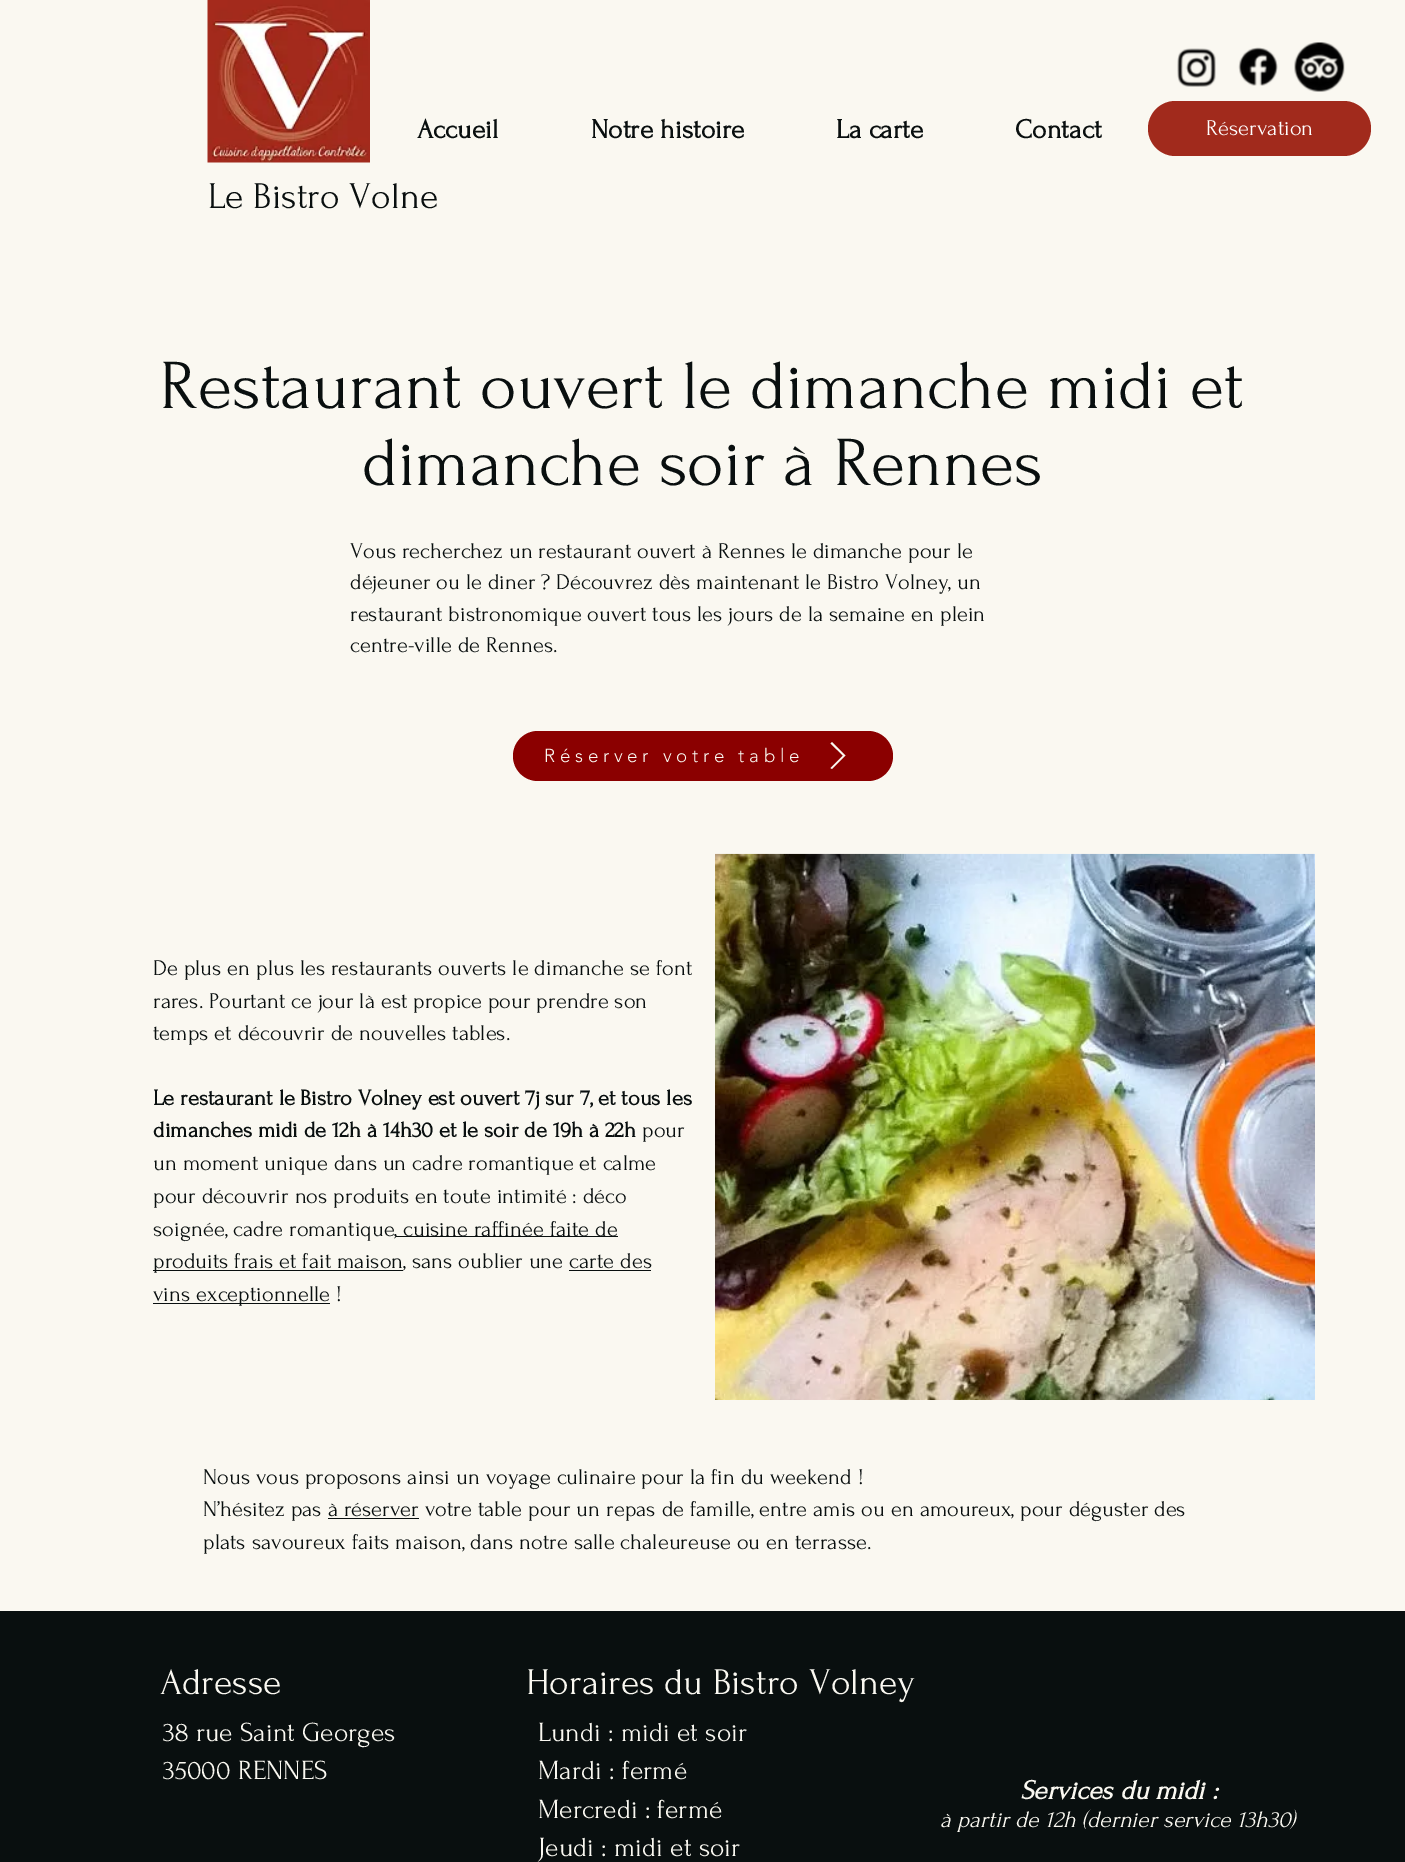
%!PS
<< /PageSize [1405 1862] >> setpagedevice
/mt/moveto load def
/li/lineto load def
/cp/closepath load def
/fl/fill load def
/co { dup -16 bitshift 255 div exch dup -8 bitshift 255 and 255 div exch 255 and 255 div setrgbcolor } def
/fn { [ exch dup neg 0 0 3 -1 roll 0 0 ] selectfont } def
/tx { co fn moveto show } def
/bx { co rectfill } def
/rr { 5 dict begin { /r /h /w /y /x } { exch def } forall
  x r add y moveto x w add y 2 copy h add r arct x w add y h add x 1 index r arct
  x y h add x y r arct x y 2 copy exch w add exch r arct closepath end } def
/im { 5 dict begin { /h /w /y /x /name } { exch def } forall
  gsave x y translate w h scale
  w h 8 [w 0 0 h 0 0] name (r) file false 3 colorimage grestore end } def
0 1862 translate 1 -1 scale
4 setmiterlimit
0 0 1405 1862 16#FAF8F1 bx
(media/1.raw) 1177 48 39 39 im
(media/2.raw) 1238 47 40 39 im
(media/3.raw) 1294 42 51 50 im
16#A12A1C co
1148 101 223 55 27.5 rr fl
(media/4.raw) 207 0 163 163 im
16#8B0000 co
513 731 380 50 25 rr fl
16#FAF8F1 co
832 769 mt 830.5 768 li 843 755.5 li 830.5 743.5 li 832 742 li 845.5 755.5 li cp eofill
396 1236 222 1 16#090F0F bx
153 1270 250 1 16#090F0F bx
569 1270 82 1 16#090F0F bx
153 1303 177 1 16#090F0F bx
(media/5.raw) 715 853 600 547 im
328 1518 91 1 16#090F0F bx
0 1611 1405 251 16#090F0F bx
(Accueil) 417 138 /Forum-Bold 27.5 16#090F0F tx
(Notre histoire) 591 138 /Forum-Bold 27.5 16#090F0F tx
(La carte) 836 138 /Forum-Bold 27.5 16#090F0F tx
(Contact) 1015 138 /Forum-Bold 27.5 16#090F0F tx
(Réservation) 1206 135 /Forum-Regular 22.5 16#FFFFFF tx
(Le Bistro Volne) 208 208 /Forum-Regular 37.5 16#090F0F tx
(Restaurant ouvert le dimanche midi et) 160 408 /Forum-Regular 70 16#090F0F tx
(dimanche soir à Rennes) 362 485 /Forum-Regular 70 16#090F0F tx
(Vous recherchez un restaurant ouvert à Rennes le dimanche pour le) 350 558 /Forum-Regular 22.5 16#090F0F tx
(déjeuner ou le diner ? Découvrez dès maintenant le Bistro Volney, un) 350 589 /Forum-Regular 22.5 16#090F0F tx
(restaurant bistronomique ouvert tous les jours de la semaine en plein) 350 621 /Forum-Regular 22.5 16#090F0F tx
(centre-ville de Rennes.) 350 652 /Forum-Regular 22.5 16#090F0F tx
/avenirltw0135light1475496-Light 18.75 fn
16#FAF8F1 co
544 762 mt 4.7 0 (Réserver votre table) ashow
(De plus en plus les restaurants ouverts le dimanche se font) 153 975 /Forum-Regular 22.5 16#090F0F tx
(rares. Pourtant ce jour là est propice pour prendre son) 153 1008 /Forum-Regular 22.5 16#090F0F tx
(temps et découvrir de nouvelles tables.) 153 1040 /Forum-Regular 22.5 16#090F0F tx
(Le restaurant le Bistro Volney est ouvert 7j sur 7, et tous les) 153 1105 /Forum-Bold 22.5 16#090F0F tx
(dimanches midi de 12h à 14h30 et le soir de 19h à 22h) 153 1137 /Forum-Bold 22.5 16#090F0F tx
(pour) 642 1137 /Forum-Regular 22.5 16#090F0F tx
(un moment unique dans un cadre romantique et calme) 153 1170 /Forum-Regular 22.5 16#090F0F tx
(pour découvrir nos produits en toute intimité : déco) 153 1203 /Forum-Regular 22.5 16#090F0F tx
(soignée, cadre romantique,) 153 1236 /Forum-Regular 22.5 16#090F0F tx
(cuisine raffinée faite de) 403 1236 /Forum-Regular 22.5 16#090F0F tx
(produits frais et fait maison, sans oublier une carte des) 153 1268 /Forum-Regular 22.5 16#090F0F tx
(vins exceptionnelle !) 153 1301 /Forum-Regular 22.5 16#090F0F tx
(Nous vous proposons ainsi un voyage culinaire pour la fin du weekend !) 203 1484 /Forum-Regular 22.5 16#090F0F tx
(N’hésitez pas à réserver votre table pour un repas de famille, entre amis ou en amoureux, pour déguster des) 203 1516 /Forum-Regular 22.5 16#090F0F tx
(plats savoureux faits maison, dans notre salle chaleureuse ou en terrasse.) 203 1549 /Forum-Regular 22.5 16#090F0F tx
(Adresse) 160 1694 /Forum-Regular 37.5 16#FAF8F1 tx
(Horaires du Bistro Volney) 526 1694 /Forum-Regular 37.5 16#FAF8F1 tx
(38 rue Saint Georges) 163 1741 /Forum-Regular 27.5 16#FAF8F1 tx
(35000 RENNES) 163 1779 /Forum-Regular 27.5 16#FAF8F1 tx
(Lundi : midi et soir) 538 1741 /Forum-Regular 27.5 16#FAF8F1 tx
(Mardi : fermé) 538 1779 /Forum-Regular 27.5 16#FAF8F1 tx
(Mercredi : fermé) 538 1818 /Forum-Regular 27.5 16#FAF8F1 tx
(Jeudi : midi et soir) 538 1856 /Forum-Regular 27.5 16#FAF8F1 tx
(Services du midi :) 1020 1799 /Forum-BoldItalic 27.5 16#FAF8F1 tx
(à partir de 12h \(dernier service 13h30\)) 940 1827 /Forum-Italic 23.75 16#FAF8F1 tx
showpage
